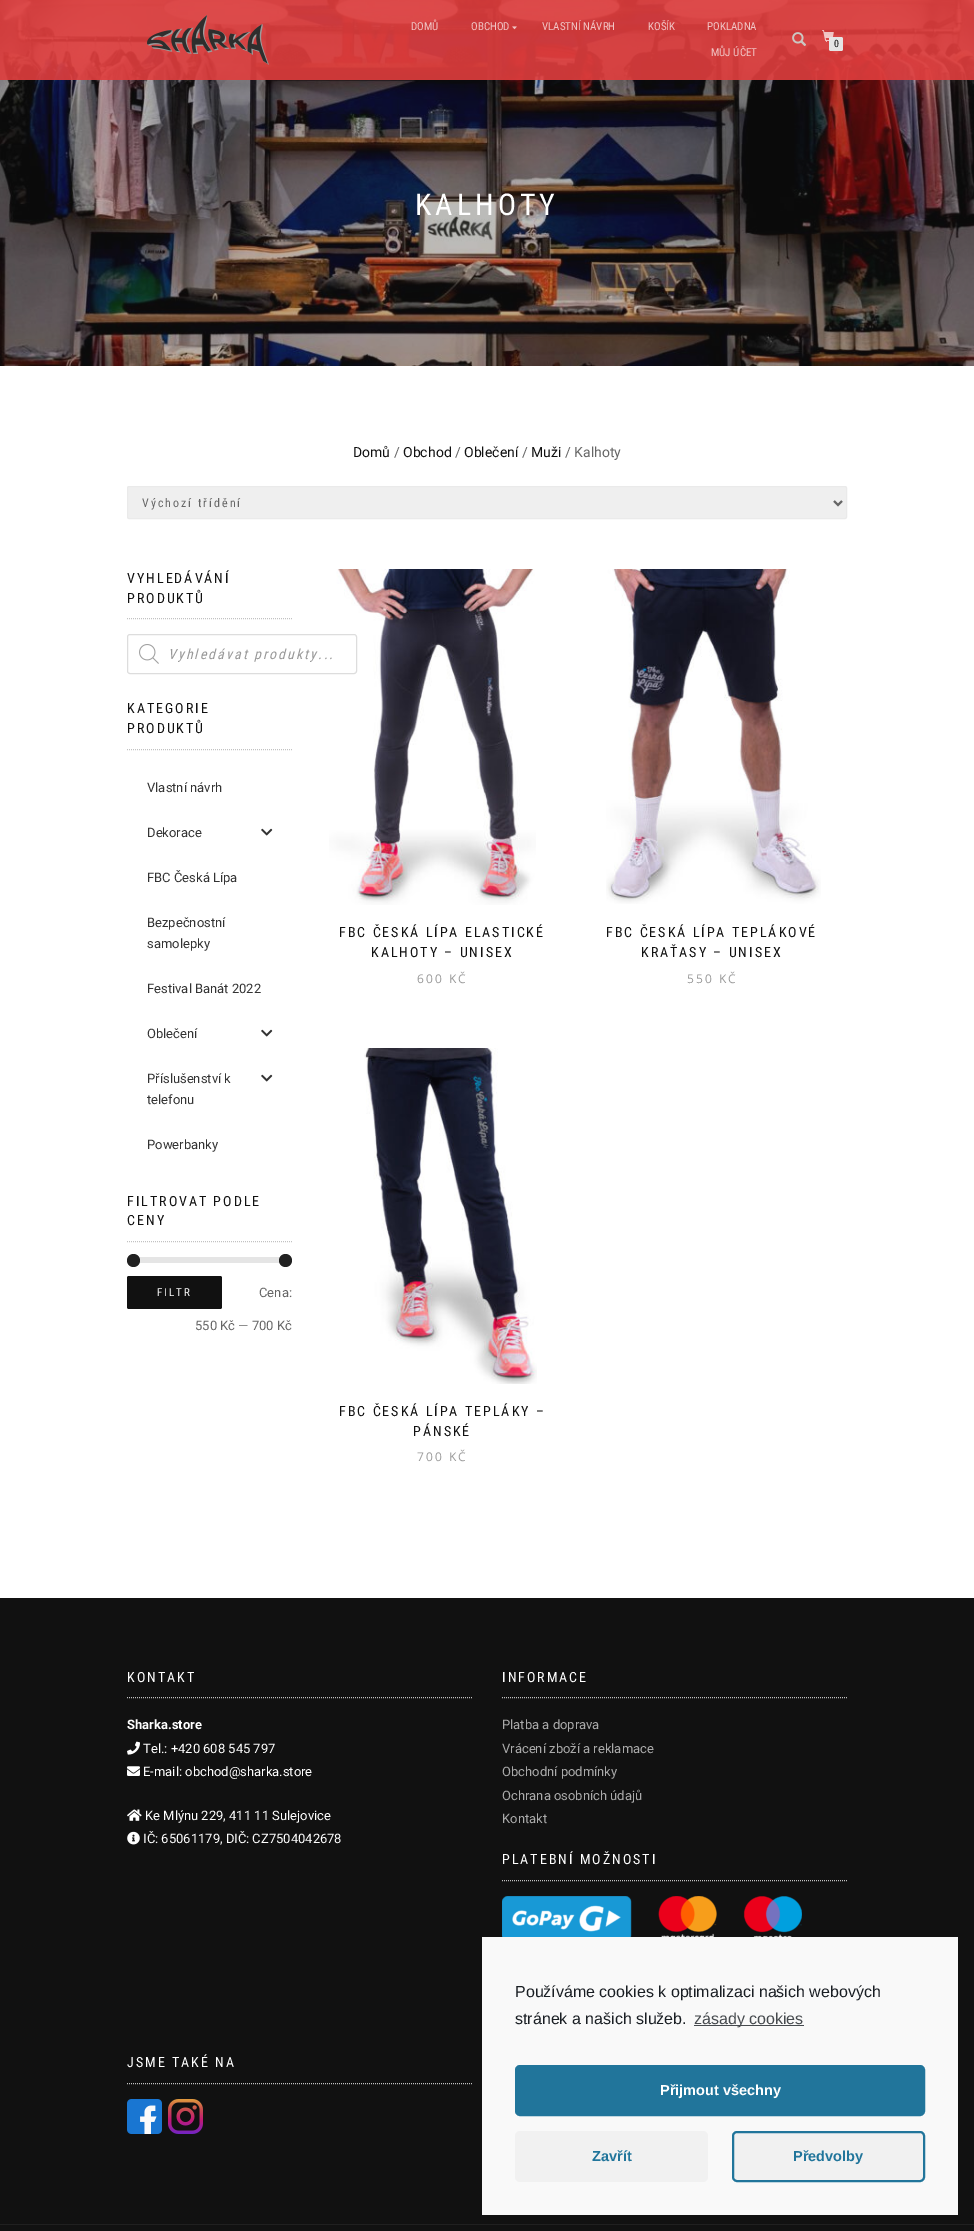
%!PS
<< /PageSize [974 2231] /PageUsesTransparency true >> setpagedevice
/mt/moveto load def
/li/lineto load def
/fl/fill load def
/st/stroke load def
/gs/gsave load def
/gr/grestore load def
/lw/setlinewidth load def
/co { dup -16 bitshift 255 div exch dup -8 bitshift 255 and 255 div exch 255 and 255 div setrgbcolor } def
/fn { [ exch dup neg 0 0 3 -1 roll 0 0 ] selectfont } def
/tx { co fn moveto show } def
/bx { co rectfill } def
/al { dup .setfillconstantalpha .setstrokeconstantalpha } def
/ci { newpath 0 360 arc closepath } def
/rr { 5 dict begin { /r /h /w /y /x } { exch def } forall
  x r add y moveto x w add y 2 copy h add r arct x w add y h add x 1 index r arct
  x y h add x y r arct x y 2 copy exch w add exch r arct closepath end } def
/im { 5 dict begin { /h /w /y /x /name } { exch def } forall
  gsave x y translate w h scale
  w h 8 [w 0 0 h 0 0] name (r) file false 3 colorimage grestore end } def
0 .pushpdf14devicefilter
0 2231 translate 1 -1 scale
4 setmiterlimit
0 0 974 2231 16#FFFFFF bx
(media/5.raw) 0 0 974 366 im
0.9 al
0 0 974 80 16#E03D3D bx
1 al
(media/1.raw) 147 15 122 50 im
(media/2.raw) 512 26 5 4 im
(media/3.raw) 792 32 14 14 im
(media/4.raw) 822 30 12 12 im
16#E5E5E5 co
829 37 14 14 2 rr fl
16#EFEFEF co
127.5 486.5 719 32 1.5 rr gs fl gr
16#EAEAEA co
st
16#666666 co
2 lw
834 501 mt 838 505 li 842 501 li st
16#C2C2C2 co
1 lw
[1 1] 0 setdash
127 618.5 mt 292 618.5 li st
(media/8.raw) 329 569 207 336 im
16#DDDDDD co
[] 0 setdash
127.5 634.5 229 39 2.5 rr st
(media/6.raw) 139 644 20 20 im
16#C2C2C2 co
[1 1] 0 setdash
127 749.5 mt 292 749.5 li st
(media/7.raw) 261 828 12 8 im
(media/7.raw) 261 1029 12 8 im
(media/7.raw) 261 1074 12 8 im
127 1241.5 mt 292 1241.5 li st
16#E5E5E5 co
127 1257 165 6 3 rr fl
16#212121 co
133.5 1260.5 6.5 ci fl
285.5 1260.5 6.5 ci fl
16#111111 co
127 1276 95 33 2 rr fl
(media/9.raw) 606 569 215 335 im
(media/10.raw) 364 1048 173 336 im
0 1598 974 626 16#111111 bx
16#C2C2C2 co
127 1697.5 mt 472 1697.5 li st
(media/11.raw) 127 1741 13 14 im
(media/12.raw) 127 1766 13 10 im
(media/13.raw) 127 1809 15 12 im
(media/14.raw) 127 1831 13 14 im
502 1697.5 mt 847 1697.5 li st
502 1880.5 mt 847 1880.5 li st
(media/15.raw) 502 1896 300 41 im
127 2083.5 mt 472 2083.5 li st
(media/16.raw) 127 2099 35 35 im
(media/17.raw) 168 2099 35 35 im
0 2225 974 6 16#111111 bx
0 2224 974 1 16#202020 bx
482 1937 476 278 16#F9F9F9 bx
694 2025 110 1 16#464A4E bx
16#21759B co
516 2066 408 49 4 rr gs fl gr
2 lw
[] 0 setdash
st
16#F1F1F1 co
515 2131 193 51 5 rr fl
733 2132 191 49 4 rr gs fl gr
16#21759B co
st
(DOMŮ) 411 30 /RobotoCondensed-Regular 11 16#F1C5C5 tx
(OBCHOD) 471 30 /RobotoCondensed-Regular 11 16#F1C5C5 tx
(VLASTNÍ NÁVRH) 542 30 /RobotoCondensed-Regular 11 16#F1C5C5 tx
(KOŠÍK) 648 30 /RobotoCondensed-Regular 11 16#F1C5C5 tx
(POKLADNA) 707 30 /RobotoCondensed-Regular 11 16#F1C5C5 tx
(MŮJ ÚČET) 711 56 /RobotoCondensed-Regular 11 16#F1C5C5 tx
(0) 834 47 /RobotoCondensed-Regular 10 16#111111 tx
/RobotoCondensed-Regular 30 fn
16#FFFFFF co
415 215 mt 4 0 (KALHOTY) ashow
(Domů) 353 457 /Roboto-Regular 14 16#111111 tx
(/) 394 457 /Roboto-Regular 14 16#666666 tx
(Obchod) 403 457 /Roboto-Regular 14 16#111111 tx
(/) 455 457 /Roboto-Regular 14 16#666666 tx
(Oblečení) 464 457 /Roboto-Regular 14 16#111111 tx
(/) 522 457 /Roboto-Regular 14 16#666666 tx
(Muži) 531 457 /Roboto-Regular 14 16#111111 tx
(/ Kalhoty) 565 457 /Roboto-Regular 14 16#666666 tx
/RobotoCondensed-Regular 12 fn
142 507 mt 2 0 (Výchozí třídění) ashow
/RobotoCondensed-Regular 14 fn
16#111111 co
127 583 mt 2 0 (VYHLEDÁVÁNÍ) ashow
127 603 mt 2 0 (PRODUKTŮ) ashow
/RobotoCondensed-Italic 14 fn
16#999999 co
168 659 mt 2 0 (Vyhledávat produkty...) ashow
/RobotoCondensed-Regular 14 fn
16#111111 co
127 713 mt 2 0 (KATEGORIE) ashow
127 733 mt 2 0 (PRODUKTŮ) ashow
(Vlastní návrh) 147 792 /Roboto-Regular 13 16#333333 tx
(Dekorace) 147 837 /Roboto-Regular 13 16#333333 tx
(FBC Česká Lípa) 147 882 /Roboto-Regular 13 16#333333 tx
(Bezpečnostní) 147 927 /Roboto-Regular 13 16#333333 tx
(samolepky) 147 948 /Roboto-Regular 13 16#333333 tx
(Festival Banát 2022) 147 993 /Roboto-Regular 13 16#333333 tx
(Oblečení) 147 1038 /Roboto-Regular 13 16#333333 tx
(Příslušenství k) 147 1083 /Roboto-Regular 13 16#333333 tx
(telefonu) 147 1104 /Roboto-Regular 13 16#333333 tx
(Powerbanky) 147 1149 /Roboto-Regular 13 16#333333 tx
/RobotoCondensed-Regular 14 fn
16#111111 co
127 1206 mt 2 0 (FILTROVAT PODLE) ashow
127 1225 mt 2 0 (CENY) ashow
/RobotoCondensed-Regular 11 fn
16#FFFFFF co
157 1296 mt 2 0 (FILTR) ashow
(Cena:) 259 1297 /Roboto-Regular 13 16#666666 tx
(550 Kč — 700 Kč) 195 1330 /Roboto-Regular 13 16#666666 tx
/RobotoCondensed-Regular 14 fn
16#111111 co
339 937 mt 2 0 (FBC ČESKÁ LÍPA ELASTICKÉ) ashow
371 957 mt 2 0 (KALHOTY – UNISEX) ashow
/OpenSans-Regular 12 fn
16#999999 co
417 983 mt 2 0 (600 KČ) ashow
/RobotoCondensed-Regular 14 fn
16#111111 co
606 937 mt 2 0 (FBC ČESKÁ LÍPA TEPLÁKOVÉ) ashow
641 957 mt 2 0 (KRAŤASY – UNISEX) ashow
/OpenSans-Regular 12 fn
16#999999 co
687 983 mt 2 0 (550 KČ) ashow
/RobotoCondensed-Regular 14 fn
16#111111 co
339 1416 mt 2 0 (FBC ČESKÁ LÍPA TEPLÁKY –) ashow
413 1436 mt 2 0 (PÁNSKÉ) ashow
/OpenSans-Regular 12 fn
16#999999 co
417 1461 mt 2 0 (700 KČ) ashow
/RobotoCondensed-Regular 14 fn
16#FFFFFF co
127 1682 mt 2 0 (KONTAKT) ashow
(Sharka.store) 127 1729 /Roboto-Bold 13 16#FFFFFF tx
(Tel.: +420 608 545 797) 143 1753 /Roboto-Regular 13 16#FFFFFF tx
(E-mail: obchod@sharka.store) 143 1776 /Roboto-Regular 13 16#FFFFFF tx
(Ke Mlýnu 229, 411 11 Sulejovice) 145 1820 /Roboto-Regular 13 16#FFFFFF tx
(IČ: 65061179, DIČ: CZ7504042678) 143 1843 /Roboto-Regular 13 16#FFFFFF tx
/RobotoCondensed-Regular 14 fn
502 1682 mt 2 0 (INFORMACE) ashow
(Platba a doprava) 502 1729 /Roboto-Regular 13 16#AAAAAA tx
(Vrácení zboží a reklamace) 502 1753 /Roboto-Regular 13 16#AAAAAA tx
(Obchodní podmínky) 502 1776 /Roboto-Regular 13 16#AAAAAA tx
(Ochrana osobních údajů) 502 1800 /Roboto-Regular 13 16#AAAAAA tx
(Kontakt) 502 1823 /Roboto-Regular 13 16#AAAAAA tx
/RobotoCondensed-Regular 14 fn
16#FFFFFF co
502 1864 mt 2 0 (PLATEBNÍ MOŽNOSTI) ashow
127 2067 mt 2 0 (JSME TAKÉ NA) ashow
(Používáme cookies k optimalizaci našich webových) 515 1997 /LiberationSans-Regular 16 16#191E23 tx
(stránek a našich služeb.) 515 2024 /LiberationSans-Regular 16 16#191E23 tx
(zásady cookies) 694 2024 /LiberationSans-Regular 16 16#464A4E tx
(Přijmout všechny) 660 2095 /LiberationSans-Bold 14.5 16#FFFFFF tx
(Zavřít) 592 2161 /LiberationSans-Bold 14.5 16#21759B tx
(Předvolby) 793 2161 /LiberationSans-Bold 14.5 16#21759B tx
.poppdf14devicefilter showpage
